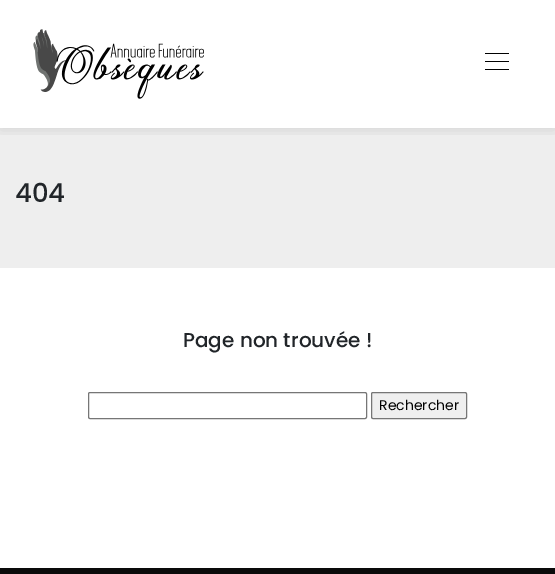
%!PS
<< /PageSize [555 574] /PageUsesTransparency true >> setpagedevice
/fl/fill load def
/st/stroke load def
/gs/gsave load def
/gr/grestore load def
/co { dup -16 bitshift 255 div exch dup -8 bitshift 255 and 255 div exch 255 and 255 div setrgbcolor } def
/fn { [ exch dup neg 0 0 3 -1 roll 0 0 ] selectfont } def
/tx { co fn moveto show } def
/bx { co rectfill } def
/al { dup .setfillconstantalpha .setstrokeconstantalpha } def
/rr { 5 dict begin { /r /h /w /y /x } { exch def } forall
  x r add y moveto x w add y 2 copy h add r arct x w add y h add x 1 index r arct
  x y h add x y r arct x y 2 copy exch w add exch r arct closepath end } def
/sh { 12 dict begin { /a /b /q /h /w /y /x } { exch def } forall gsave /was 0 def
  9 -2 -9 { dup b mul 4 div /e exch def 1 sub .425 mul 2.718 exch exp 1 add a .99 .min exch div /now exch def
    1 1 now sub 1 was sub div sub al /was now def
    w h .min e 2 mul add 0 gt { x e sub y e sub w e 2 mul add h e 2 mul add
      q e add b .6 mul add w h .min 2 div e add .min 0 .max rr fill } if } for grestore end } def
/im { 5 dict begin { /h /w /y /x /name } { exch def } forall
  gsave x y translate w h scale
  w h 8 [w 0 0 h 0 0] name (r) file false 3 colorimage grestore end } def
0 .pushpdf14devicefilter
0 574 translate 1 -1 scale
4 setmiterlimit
0 0 555 574 16#FFFFFF bx
0 128 555 140 16#EEEEEE bx
gs
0 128 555 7 rectclip
16#000000 co
0 2 555 128 0 6.5 .1 sh
gr
(media/1.raw) 33 29 171 70 im
485 53 24 1 16#000000 bx
485 61 24 1 16#000000 bx
485 69 24 1 16#000000 bx
16#767676 co
88.5 392.5 278 26 1.5 rr st
16#EFEFEF co
371.5 392.5 95 26 1.5 rr gs fl gr
16#767676 co
st
0 568 555 6 16#0A0A0A bx
(404) 15 202 /Poppins-Medium 26 16#212529 tx
(Page non trouvée !) 183 347 /Poppins-Medium 20 16#212529 tx
(Rechercher) 379 410 /Poppins-Regular 14 16#000000 tx
.poppdf14devicefilter showpage
